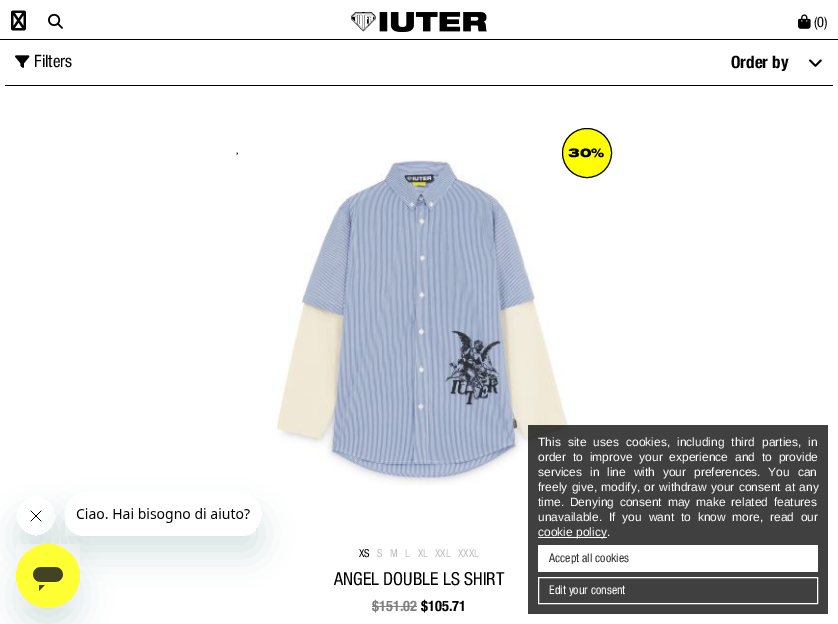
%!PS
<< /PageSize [838 624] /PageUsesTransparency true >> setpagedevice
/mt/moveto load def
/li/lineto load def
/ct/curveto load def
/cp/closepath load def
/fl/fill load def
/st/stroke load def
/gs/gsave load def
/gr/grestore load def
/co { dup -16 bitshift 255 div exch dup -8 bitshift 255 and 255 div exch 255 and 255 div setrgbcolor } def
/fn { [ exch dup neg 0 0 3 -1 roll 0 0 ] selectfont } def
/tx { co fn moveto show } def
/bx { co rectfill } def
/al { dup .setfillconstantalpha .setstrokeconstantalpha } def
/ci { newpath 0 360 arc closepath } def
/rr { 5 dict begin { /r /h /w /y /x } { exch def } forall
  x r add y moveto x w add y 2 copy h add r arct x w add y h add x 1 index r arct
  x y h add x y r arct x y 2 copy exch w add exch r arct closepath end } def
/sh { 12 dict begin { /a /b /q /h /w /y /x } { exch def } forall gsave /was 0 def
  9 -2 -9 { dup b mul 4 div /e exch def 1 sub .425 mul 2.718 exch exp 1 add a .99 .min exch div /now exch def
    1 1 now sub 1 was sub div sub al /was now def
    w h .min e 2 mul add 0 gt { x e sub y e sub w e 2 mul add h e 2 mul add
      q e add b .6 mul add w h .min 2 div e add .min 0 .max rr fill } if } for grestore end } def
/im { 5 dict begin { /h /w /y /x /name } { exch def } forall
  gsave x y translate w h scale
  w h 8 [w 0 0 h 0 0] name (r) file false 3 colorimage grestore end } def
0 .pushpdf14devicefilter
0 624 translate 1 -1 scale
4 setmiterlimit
0 0 838 624 16#FFFFFF bx
0 39 838 1 16#000000 bx
(media/1.raw) 11 10 15 21 im
(media/2.raw) 48 13 15 16 im
(media/3.raw) 350 12 137 20 im
(media/4.raw) 798 14 13 15 im
5 85 828 1 16#000000 bx
(media/5.raw) 15 55 15 13 im
(media/6.raw) 809 59 13 8 im
(media/7.raw) 236 152 2 3 im
(media/8.raw) 272 159 300 326 im
16#FFFF00 co
587 153 24.5 ci gs fl gr
16#000000 co
st
372 606 45 1 16#808080 bx
gs
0 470 mt 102 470 li 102 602 li 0 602 li cp 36 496 mt 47 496 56 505 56 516 ct 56 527 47 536 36 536 ct 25 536 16 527 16 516 ct 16 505 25 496 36 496 ct cp eoclip newpath
16#17494D co
16 516 40 40 20 15 .15 sh
gr
(media/10.raw) 30 510 12 12 im
gs
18 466 mt 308 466 li 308 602 li 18 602 li cp 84 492 mt 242 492 li 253 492 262 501 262 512 ct 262 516 li 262 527 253 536 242 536 ct 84 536 li 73 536 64 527 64 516 ct 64 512 li 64 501 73 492 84 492 ct cp eoclip newpath
16#17494D co
64 512 198 44 20 15 .15 sh
gr
(media/9.raw) 65 508 191 28 im
16#17494D co
16 564 64 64 32 15 .15 sh
(media/11.raw) 16 544 64 64 im
0.75 al
528 425 300 189 16#000000 bx
1 al
538 537 69 1 16#FFFFFF bx
538 545 280 27 16#FFFFFF bx
538.5 577.5 279 26 rectstroke
(\(0\)) 814 27 /HelveticaNeue-Regular 14.5 16#000000 tx
(Filters) 34 67 /HelveticaNeue-Regular 17 16#000000 tx
(Order by) 731 68 /HelveticaNeue-Bold 17 16#000000 tx
(30%) 568 157 /HelveticaNeue-Black 12 16#000000 tx
(XS) 359 557 /HelveticaNeue-Regular 11 16#000000 tx
(S) 377 557 /HelveticaNeue-Regular 11 16#BFBFBF tx
(M) 390 557 /HelveticaNeue-Regular 11 16#BFBFBF tx
(L) 405 557 /HelveticaNeue-Regular 11 16#BFBFBF tx
(XL) 418 557 /HelveticaNeue-Regular 11 16#BFBFBF tx
(XXL) 435 557 /HelveticaNeue-Regular 11 16#BFBFBF tx
(XXXL) 458 557 /HelveticaNeue-Regular 11 16#BFBFBF tx
(ANGEL DOUBLE LS SHIRT) 334 585 /HelveticaNeue-Regular 18 16#000000 tx
($151.02) 372 611 /HelveticaNeue-Bold 14.5 16#808080 tx
($105.71) 421 611 /HelveticaNeue-Bold 14.5 16#000000 tx
/LiberationSans-Regular 12 fn
16#FFFFFF co
538 446 mt 3.75 0 32 (This site uses cookies, including third parties, in) widthshow
538 461 mt 3.5 0 32 (order to improve your experience and to provide) widthshow
538 476 mt 4.5 0 32 (services in line with your preferences. You can) widthshow
538 491 mt 1 0 32 (freely give, modify, or withdraw your consent at any) widthshow
538 506 mt 2.5 0 32 (time. Denying consent may make related features) widthshow
538 521 mt 3.5 0 32 (unavailable. If you want to know more, read our) widthshow
(cookie policy.) 538 536 /LiberationSans-Regular 12 16#FFFFFF tx
(Accept all cookies) 549 562 /HelveticaNeue-Regular 12 16#333333 tx
(Edit your consent) 549 594 /HelveticaNeue-Regular 12 16#FFFFFF tx
.poppdf14devicefilter showpage
